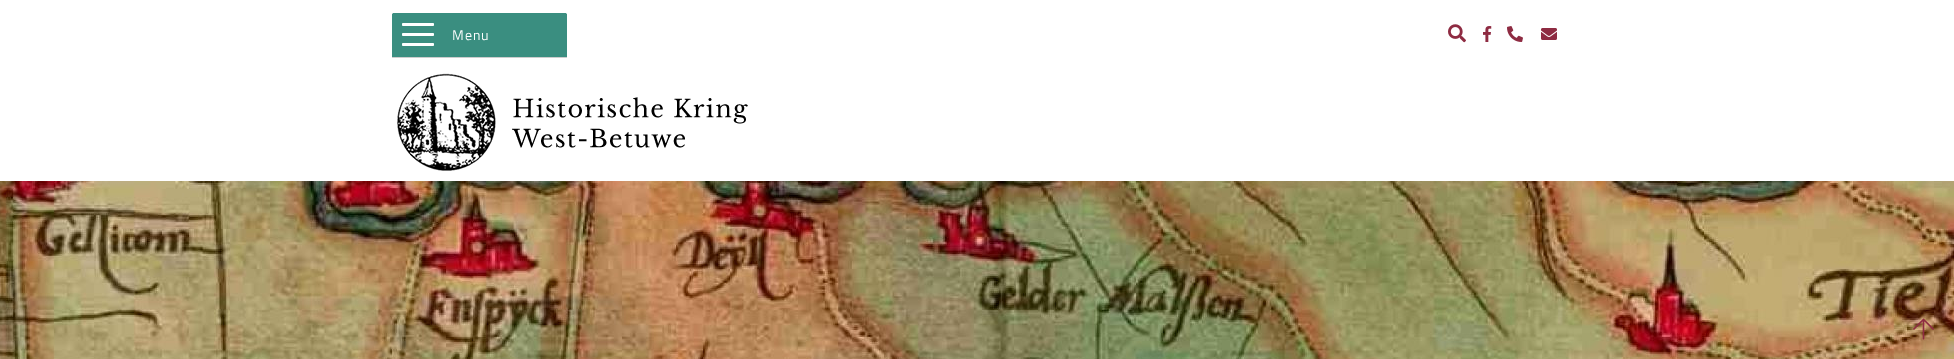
%!PS
<< /PageSize [1954 359] >> setpagedevice
/mt/moveto load def
/li/lineto load def
/ct/curveto load def
/cp/closepath load def
/fl/fill load def
/co { dup -16 bitshift 255 div exch dup -8 bitshift 255 and 255 div exch 255 and 255 div setrgbcolor } def
/fn { [ exch dup neg 0 0 3 -1 roll 0 0 ] selectfont } def
/bx { co rectfill } def
/rr { 5 dict begin { /r /h /w /y /x } { exch def } forall
  x r add y moveto x w add y 2 copy h add r arct x w add y h add x 1 index r arct
  x y h add x y r arct x y 2 copy exch w add exch r arct closepath end } def
/im { 5 dict begin { /h /w /y /x /name } { exch def } forall
  gsave x y translate w h scale
  w h 8 [w 0 0 h 0 0] name (r) file false 3 colorimage grestore end } def
0 359 translate 1 -1 scale
4 setmiterlimit
0 0 1954 359 16#FFFFFF bx
16#3A8E80 co
394 13 mt 565 13 li 566 13 567 14 567 15 ct 567 58 li 392 58 li 392 15 li 392 14 393 13 394 13 ct cp fl
392 57 175 1 16#CDCDCD bx
16#FFFFFF co
402 23 32 3 1.5 rr fl
402 33 32 3 1.5 rr fl
402 43 32 3 1.5 rr fl
(media/1.raw) 1448 24 18 19 im
(media/2.raw) 1483 26 9 16 im
(media/3.raw) 1507 26 16 16 im
(media/4.raw) 1541 28 16 12 im
(media/5.raw) 397 73 351 98 im
(media/6.raw) 0 181 1954 178 im
(media/7.raw) 1913 318 21 22 im
/TitilliumWeb-Regular 14 fn
452 40 mt 1 0 (Menu) ashow
showpage
